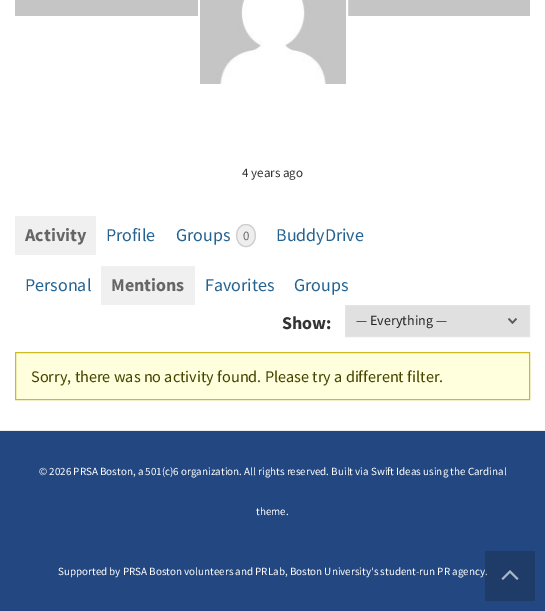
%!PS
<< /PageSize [545 611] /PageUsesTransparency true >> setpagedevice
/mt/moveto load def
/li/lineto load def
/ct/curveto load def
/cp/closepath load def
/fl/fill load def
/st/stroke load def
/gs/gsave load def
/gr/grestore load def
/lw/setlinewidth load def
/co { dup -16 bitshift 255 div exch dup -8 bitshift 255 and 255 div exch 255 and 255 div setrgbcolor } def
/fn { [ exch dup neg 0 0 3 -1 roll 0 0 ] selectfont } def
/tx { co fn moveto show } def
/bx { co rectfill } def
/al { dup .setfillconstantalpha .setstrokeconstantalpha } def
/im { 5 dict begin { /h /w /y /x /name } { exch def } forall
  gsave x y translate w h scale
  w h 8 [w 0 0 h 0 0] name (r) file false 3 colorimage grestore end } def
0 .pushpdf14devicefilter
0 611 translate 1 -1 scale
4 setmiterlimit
0 0 545 611 16#234781 bx
0 0 545 430 16#FFFFFF bx
15 0 515 16 16#C5C5C5 bx
16#FFFFFF co
2 lw
199 -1 148 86 rectstroke
(media/1.raw) 200 0 146 84 im
15 216 81 39 16#F0F0F0 bx
16#EEEEEE co
246 224 mt 251.5 224 256 229 256 235.5 ct 256 242 251.5 247 246 247 ct 240.5 247 236 242 236 235.5 ct 236 229 240.5 224 246 224 ct cp fl
16#CCCCCC co
1 lw
246 224.5 mt 258.5 224.5 258.5 246.5 246 246.5 ct 233.5 246.5 233.5 224.5 246 224.5 ct cp st
101 266 94 39 16#F0F0F0 bx
346 306 183 30 16#E0E0E0 bx
(media/2.raw) 508 318 9 6 im
16#E4E4E4 co
345.5 305.5 184 31 rectstroke
16#FFFFDD co
15.5 352.5 mt 529.5 352.5 li 529.5 399.5 li 15.5 399.5 li cp gs fl gr
16#CCBB22 co
st
0 430 545 1 16#EDEDED bx
(4 years ago) 242 177 /SourceSansPro-Regular 13 16#333333 tx
(Activity) 25 241 /SourceSansPro-Bold 18 16#666666 tx
(Profile) 106 241 /SourceSansPro-Regular 18 16#246291 tx
(Groups) 176 241 /SourceSansPro-Regular 18 16#246291 tx
(0) 243 240 /SourceSansPro-Regular 13 16#6C6C6C tx
(BuddyDrive) 276 241 /SourceSansPro-Regular 18 16#246291 tx
(Personal) 25 291 /SourceSansPro-Regular 18 16#246291 tx
(Mentions) 111 291 /SourceSansPro-Bold 18 16#666666 tx
(Favorites) 205 291 /SourceSansPro-Regular 18 16#246291 tx
(Groups) 294 291 /SourceSansPro-Regular 18 16#246291 tx
(Show:) 282 329 /SourceSansPro-Bold 18 16#333333 tx
(— Everything —) 356 325 /SourceSansPro-Regular 14 16#222222 tx
(Sorry, there was no activity found. Please try a different filter.) 31 382 /SourceSansPro-Regular 16.2 16#444400 tx
(© 2026 PRSA Boston, a 501\(c\)6 organization. All rights reserved. Built via Swift Ideas using the Cardinal) 39 475 /SourceSansPro-Regular 11 16#FFFFFF tx
(theme.) 256 515 /SourceSansPro-Regular 11 16#FFFFFF tx
(Supported by PRSA Boston volunteers and PRLab, Boston University's student-run PR agency.) 58 575 /SourceSansPro-Regular 11 16#FFFFFF tx
0.24 al
485 551 50 50 16#141414 bx
1 al
16#A7B5CD co
517 580 mt 510 573 li 503 580 li 501.5 578.5 li 510 570 li 518.5 578.5 li cp fl
.poppdf14devicefilter showpage
